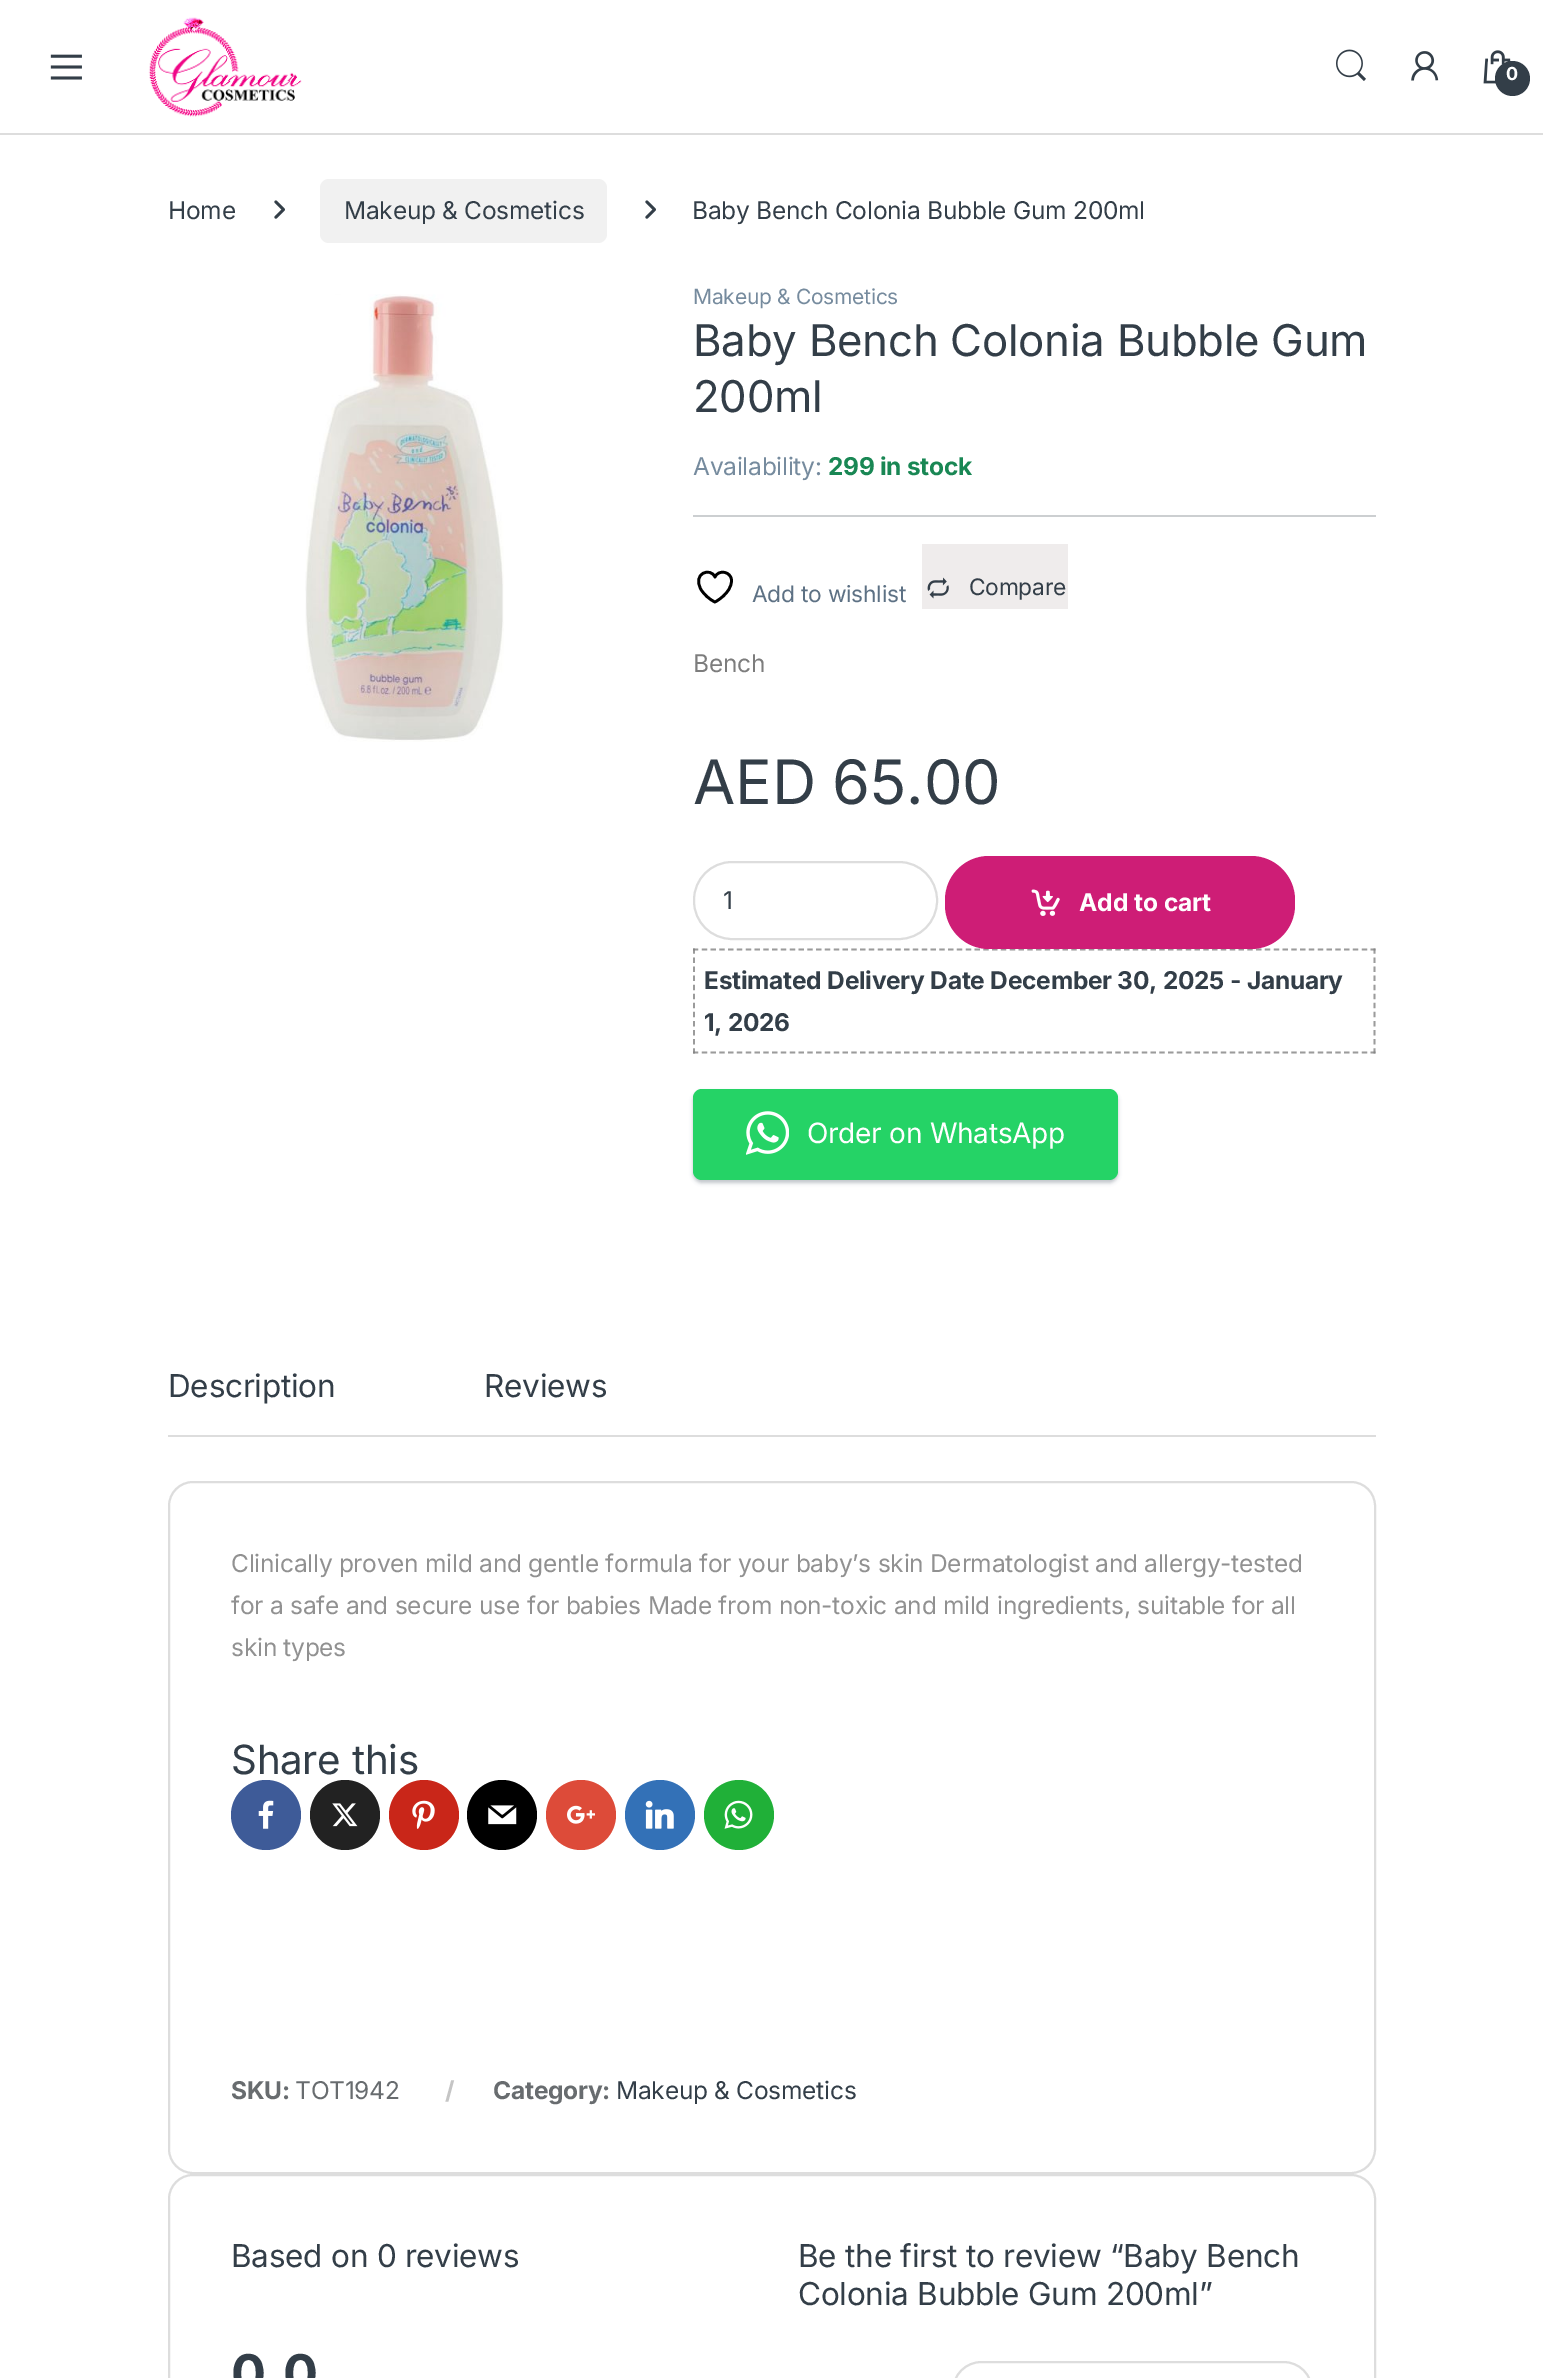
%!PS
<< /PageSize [1543 2378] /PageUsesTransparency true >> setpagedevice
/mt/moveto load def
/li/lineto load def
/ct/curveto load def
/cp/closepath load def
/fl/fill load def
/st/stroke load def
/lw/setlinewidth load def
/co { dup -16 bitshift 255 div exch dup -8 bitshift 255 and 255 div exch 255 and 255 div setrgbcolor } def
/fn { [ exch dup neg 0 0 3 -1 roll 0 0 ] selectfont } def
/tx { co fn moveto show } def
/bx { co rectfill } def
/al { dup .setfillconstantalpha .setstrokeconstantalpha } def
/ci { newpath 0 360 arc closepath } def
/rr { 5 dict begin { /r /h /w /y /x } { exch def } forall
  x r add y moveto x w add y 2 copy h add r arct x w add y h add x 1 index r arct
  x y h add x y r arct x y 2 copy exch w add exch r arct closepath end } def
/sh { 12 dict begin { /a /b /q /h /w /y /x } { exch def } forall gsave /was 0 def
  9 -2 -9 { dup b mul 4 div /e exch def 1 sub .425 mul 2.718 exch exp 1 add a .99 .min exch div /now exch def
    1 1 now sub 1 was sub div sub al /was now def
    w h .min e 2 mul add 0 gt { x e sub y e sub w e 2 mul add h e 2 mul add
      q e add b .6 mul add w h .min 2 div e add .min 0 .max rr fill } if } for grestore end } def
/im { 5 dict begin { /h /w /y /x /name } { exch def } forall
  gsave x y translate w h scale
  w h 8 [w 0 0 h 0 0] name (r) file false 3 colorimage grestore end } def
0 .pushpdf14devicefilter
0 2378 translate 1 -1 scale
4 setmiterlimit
0 0 1543 2378 16#FFFFFF bx
0 133 1543 2 16#DDDDDD bx
(media/1.raw) 50 54 32 26 im
(media/2.raw) 148 17 154 100 im
(media/3.raw) 1336 49 30 32 im
(media/4.raw) 1411 51 28 30 im
(media/5.raw) 1483 50 28 34 im
16#333E48 co
1512.5 78.5 17.5 ci fl
(media/6.raw) 274 200 11 19 im
16#F1F1F1 co
320 179 287 64 9 rr fl
(media/6.raw) 645 200 11 19 im
(media/7.raw) 305 294 199 448 im
693 515 683 2 16#CCCFD1 bx
16#000000 co
2.7 lw
1 setlinecap
1 setlinejoin
731.5 580.5 mt 731.5 571.5 718.5 569 715 577 ct 710.5 567 692 573 701 589.5 ct 704 594.5 709.5 599.5 715 602 ct 715 602 731.5 593.5 731.5 580.5 ct cp st
922 544 146 65 16#EFECEC bx
(media/8.raw) 927 577 22 22 im
16#DDDDDD co
2 lw
0 setlinecap
0 setlinejoin
694 862 243 77 38 rr st
16#9B9B9B co
1.8 lw
[5.25 3.55] 0 setdash
693 949.5 mt 1375.5 949.5 li st
16#CE1D76 co
945 856 350 93 44 rr fl
(media/9.raw) 1031 889 29 27 im
0.79 al
16#808080 co
[5.25 3.82] 0 setdash
1374.5 948.5 mt 1374.5 1053.5 li st
[5.25 3.55] 0 setdash
693 1052.5 mt 1375.5 1052.5 li st
[5.25 3.82] 0 setdash
694 948.5 mt 694 1053.5 li st
1 al
16#2D3E4F co
693 1092 425 91 9 2 .3 sh
16#25D366 co
693 1089 425 91 9 rr fl
(media/10.raw) 746 1111 43 44 im
168 1435 1208 2 16#DDDDDD bx
2 lw
[] 0 setdash
169 1482 1206 691 24 rr st
16#3E5B98 co
266 1815 35 ci fl
(media/11.raw) 258 1800 16 29 im
16#222222 co
345 1815 35 ci fl
(media/12.raw) 332 1803 26 24 im
16#C92619 co
424 1815 35 ci fl
(media/13.raw) 412 1800 23 29 im
16#000000 co
502 1815 35 ci fl
(media/14.raw) 488 1805 29 20 im
16#DD4B39 co
581 1815 35 ci fl
(media/15.raw) 567 1805 28 19 im
16#3371B7 co
660 1815 35 ci fl
(media/16.raw) 645 1800 29 29 im
16#20B038 co
739 1815 35 ci fl
(media/17.raw) 724 1800 29 29 im
16#DDDDDD co
169 2175 1206 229 24 rr st
953 2362 359 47 28.5 rr st
/Inter-Bold 18 fn
16#FFFFFF co
1506 80 mt -.25 0 (0) ashow
/Inter-Regular 24.5 fn
16#333E48 co
168 219 mt -.25 0 (Home) ashow
344 219 mt -.25 0 (Makeup & Cosmetics) ashow
692 219 mt -.25 0 (Baby Bench Colonia Bubble Gum 200ml) ashow
/Inter-Regular 21 fn
16#768B9E co
693 304 mt -.25 0 (Makeup & Cosmetics) ashow
/Inter-Regular 43.75 fn
16#333E48 co
693 356 mt -.25 0 (Baby Bench Colonia Bubble Gum) ashow
693 412 mt -.25 0 (200ml) ashow
/Inter-Regular 24.5 fn
16#768B9E co
693 475 mt -.25 0 (Availability:) ashow
/Inter-Bold 24.5 fn
16#198754 co
828 475 mt -.25 0 (299 in stock) ashow
/Inter-Regular 22.75 fn
16#5D7184 co
752 602 mt -.25 0 (Add to wishlist) ashow
16#333E48 co
969 595 mt -.25 0 (Compare) ashow
/Inter-Regular 24.5 fn
16#7D7D7D co
693 672 mt -.25 0 (Bench) ashow
/Inter-Regular 61.25 fn
16#333E48 co
693 804 mt -.25 0 (AED 65.00) ashow
(1) 723 909 /Inter-Regular 24.5 16#333E48 tx
(Add to cart) 1079 911 /Inter-Bold 24.5 16#FFFFFF tx
16#333E48 co
704 989 mt -.25 0 (Estimated Delivery Date December 30, 2025 - January) ashow
704 1031 mt -.25 0 (1, 2026) ashow
/Inter-Regular 28 fn
16#FFFFFF co
807 1143 mt -.25 0 (Order on WhatsApp) ashow
/Inter-Regular 31.5 fn
16#333E48 co
168 1397 mt -.25 0 (Description) ashow
484 1397 mt -.25 0 (Reviews) ashow
/Inter-Regular 24.5 fn
16#919191 co
231 1572 mt -.25 0 (Clinically proven mild and gentle formula for your baby’s skin Dermatologist and allergy-tested) ashow
231 1614 mt -.25 0 (for a safe and secure use for babies Made from non-toxic and mild ingredients, suitable for all) ashow
231 1656 mt -.25 0 (skin types) ashow
/Inter-Regular 40.25 fn
16#333E48 co
231 1774 mt -.25 0 (Share this) ashow
/Inter-Bold 24.5 fn
16#686C6F co
231 2099 mt -.25 0 (SKU:) ashow
/Inter-Regular 24.5 fn
295 2099 mt -.25 0 (TOT1942) ashow
/Inter-Bold 24.5 fn
16#C5C5C5 co
445 2099 mt -.25 0 (/) ashow
16#686C6F co
493 2099 mt -.25 0 (Category:) ashow
/Inter-Regular 24.5 fn
16#333E48 co
616 2099 mt -.25 0 (Makeup & Cosmetics) ashow
/Inter-Regular 31.5 fn
231 2267 mt -.25 0 (Based on 0 reviews) ashow
/Inter-Bold 52 fn
231 2392 mt -.25 0 (0.0) ashow
/Inter-Regular 31.5 fn
798 2267 mt -.25 0 (Be the first to review “Baby Bench) ashow
798 2305 mt -.25 0 (Colonia Bubble Gum 200ml”) ashow
.poppdf14devicefilter showpage
